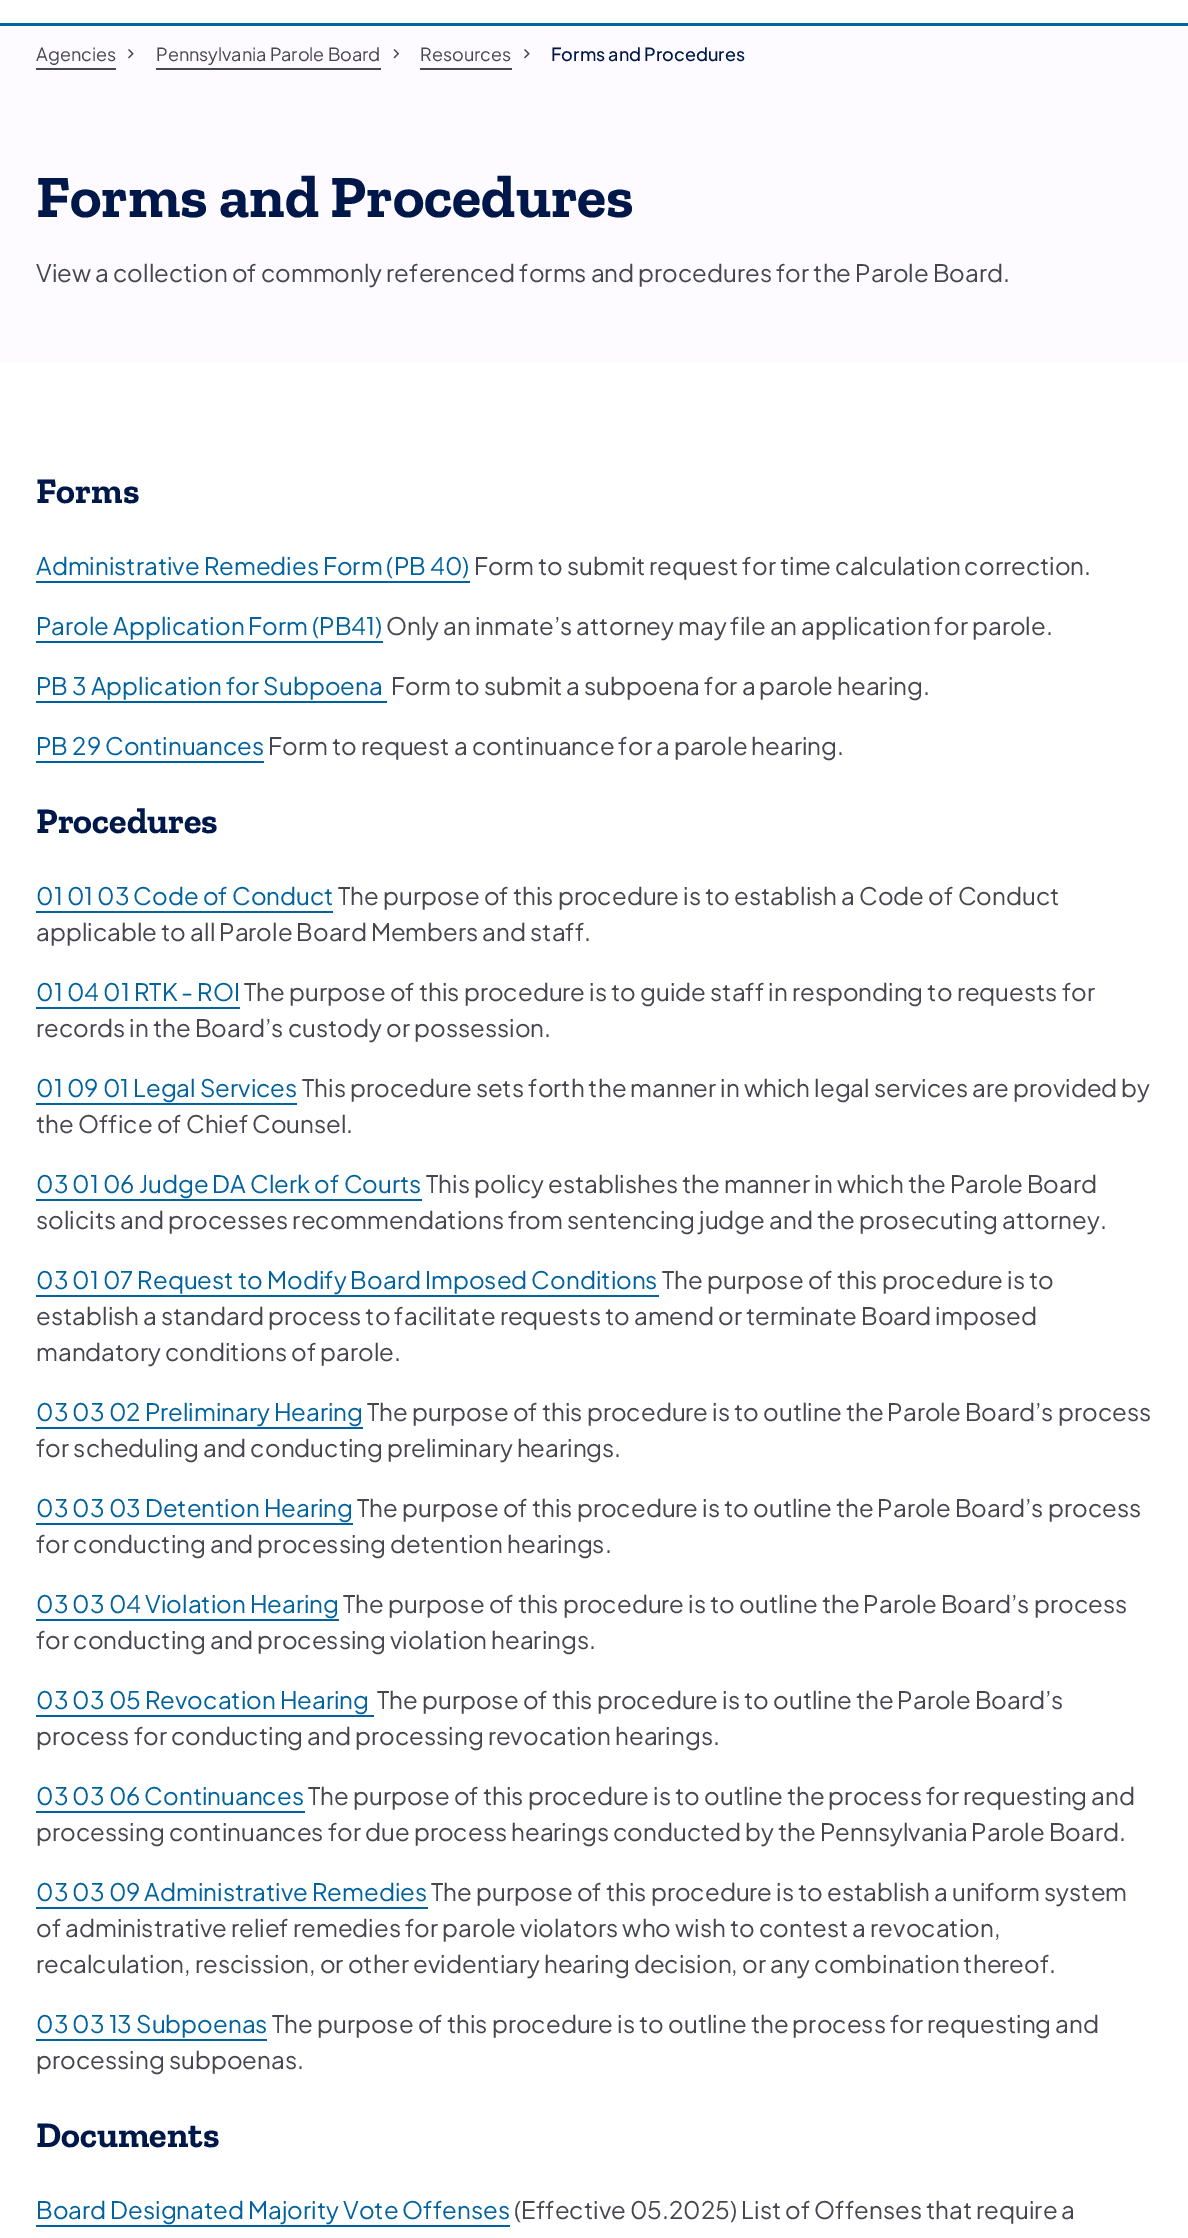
%!PS
<< /PageSize [1188 2238] >> setpagedevice
/co { dup -16 bitshift 255 div exch dup -8 bitshift 255 and 255 div exch 255 and 255 div setrgbcolor } def
/fn { [ exch dup neg 0 0 3 -1 roll 0 0 ] selectfont } def
/tx { co fn moveto show } def
/bx { co rectfill } def
/im { 5 dict begin { /h /w /y /x /name } { exch def } forall
  gsave x y translate w h scale
  w h 8 [w 0 0 h 0 0] name (r) file false 3 colorimage grestore end } def
0 2238 translate 1 -1 scale
4 setmiterlimit
0 0 1188 2238 16#FFFFFF bx
0 23 1188 3 16#00629E bx
0 26 1188 337 16#FDFBFF bx
36 68 80 2 16#45464F bx
(media/1.raw) 128 49 6 10 im
156 68 225 2 16#45464F bx
(media/2.raw) 393 49 7 10 im
420 68 92 2 16#45464F bx
(media/1.raw) 524 49 6 10 im
36 581 434 2 16#00629E bx
36 641 347 2 16#00629E bx
36 701 351 2 16#00629E bx
36 761 228 2 16#00629E bx
36 911 297 2 16#00629E bx
36 1007 204 2 16#00629E bx
36 1103 261 2 16#00629E bx
36 1199 386 2 16#00629E bx
36 1295 623 2 16#00629E bx
36 1427 327 2 16#00629E bx
36 1523 317 2 16#00629E bx
36 1619 303 2 16#00629E bx
36 1715 338 2 16#00629E bx
36 1811 269 2 16#00629E bx
36 1907 392 2 16#00629E bx
36 2039 231 2 16#00629E bx
36 2225 474 2 16#00629E bx
(Agencies) 36 61 /PlusJakartaSans-Regular 18 16#45464F tx
(Pennsylvania Parole Board) 156 61 /PlusJakartaSans-Regular 18 16#45464F tx
(Resources) 420 61 /PlusJakartaSans-Regular 18 16#45464F tx
(Forms and Procedures) 551 61 /PlusJakartaSans-Medium 18 16#001849 tx
(Forms and Procedures) 36 217 /ZillaSlab-Bold 60 16#001849 tx
(View a collection of commonly referenced forms and procedures for the Parole Board.) 36 282 /PlusJakartaSans-Regular 24 16#45464F tx
(Forms) 36 503 /ZillaSlab-Bold 36 16#001849 tx
(Administrative Remedies Form \(PB 40\)) 36 575 /PlusJakartaSans-Regular 24 16#00629E tx
(Form to submit request for time calculation correction.) 474 575 /PlusJakartaSans-Regular 24 16#45464F tx
(Parole Application Form \(PB41\)) 36 635 /PlusJakartaSans-Regular 24 16#00629E tx
(Only an inmate’s attorney may file an application for parole.) 386 635 /PlusJakartaSans-Regular 24 16#45464F tx
(PB 3 Application for Subpoena) 36 695 /PlusJakartaSans-Regular 24 16#00629E tx
(Form to submit a subpoena for a parole hearing.) 391 695 /PlusJakartaSans-Regular 24 16#45464F tx
(PB 29 Continuances) 36 755 /PlusJakartaSans-Regular 24 16#00629E tx
(Form to request a continuance for a parole hearing.) 268 755 /PlusJakartaSans-Regular 24 16#45464F tx
(Procedures) 36 833 /ZillaSlab-Bold 36 16#001849 tx
(01 01 03 Code of Conduct) 36 905 /PlusJakartaSans-Regular 24 16#00629E tx
(The purpose of this procedure is to establish a Code of Conduct) 338 905 /PlusJakartaSans-Regular 24 16#45464F tx
(applicable to all Parole Board Members and staff.) 36 941 /PlusJakartaSans-Regular 24 16#45464F tx
(01 04 01 RTK - ROI) 36 1001 /PlusJakartaSans-Regular 24 16#00629E tx
(The purpose of this procedure is to guide staff in responding to requests for) 244 1001 /PlusJakartaSans-Regular 24 16#45464F tx
(records in the Board’s custody or possession.) 36 1037 /PlusJakartaSans-Regular 24 16#45464F tx
(01 09 01 Legal Services) 36 1097 /PlusJakartaSans-Regular 24 16#00629E tx
(This procedure sets forth the manner in which legal services are provided by) 302 1097 /PlusJakartaSans-Regular 24 16#45464F tx
(the Office of Chief Counsel.) 36 1133 /PlusJakartaSans-Regular 24 16#45464F tx
(03 01 06 Judge DA Clerk of Courts) 36 1193 /PlusJakartaSans-Regular 24 16#00629E tx
(This policy establishes the manner in which the Parole Board) 426 1193 /PlusJakartaSans-Regular 24 16#45464F tx
(solicits and processes recommendations from sentencing judge and the prosecuting attorney.) 36 1229 /PlusJakartaSans-Regular 24 16#45464F tx
(03 01 07 Request to Modify Board Imposed Conditions) 36 1289 /PlusJakartaSans-Regular 24 16#00629E tx
(The purpose of this procedure is to) 662 1289 /PlusJakartaSans-Regular 24 16#45464F tx
(establish a standard process to facilitate requests to amend or terminate Board imposed) 36 1325 /PlusJakartaSans-Regular 24 16#45464F tx
(mandatory conditions of parole.) 36 1361 /PlusJakartaSans-Regular 24 16#45464F tx
(03 03 02 Preliminary Hearing) 36 1421 /PlusJakartaSans-Regular 24 16#00629E tx
(The purpose of this procedure is to outline the Parole Board’s process) 367 1421 /PlusJakartaSans-Regular 24 16#45464F tx
(for scheduling and conducting preliminary hearings.) 36 1457 /PlusJakartaSans-Regular 24 16#45464F tx
(03 03 03 Detention Hearing) 36 1517 /PlusJakartaSans-Regular 24 16#00629E tx
(The purpose of this procedure is to outline the Parole Board’s process) 357 1517 /PlusJakartaSans-Regular 24 16#45464F tx
(for conducting and processing detention hearings.) 36 1553 /PlusJakartaSans-Regular 24 16#45464F tx
(03 03 04 Violation Hearing) 36 1613 /PlusJakartaSans-Regular 24 16#00629E tx
(The purpose of this procedure is to outline the Parole Board’s process) 343 1613 /PlusJakartaSans-Regular 24 16#45464F tx
(for conducting and processing violation hearings.) 36 1649 /PlusJakartaSans-Regular 24 16#45464F tx
(03 03 05 Revocation Hearing) 36 1709 /PlusJakartaSans-Regular 24 16#00629E tx
(The purpose of this procedure is to outline the Parole Board’s) 377 1709 /PlusJakartaSans-Regular 24 16#45464F tx
(process for conducting and processing revocation hearings.) 36 1745 /PlusJakartaSans-Regular 24 16#45464F tx
(03 03 06 Continuances) 36 1805 /PlusJakartaSans-Regular 24 16#00629E tx
(The purpose of this procedure is to outline the process for requesting and) 308 1805 /PlusJakartaSans-Regular 24 16#45464F tx
(processing continuances for due process hearings conducted by the Pennsylvania Parole Board.) 36 1841 /PlusJakartaSans-Regular 24 16#45464F tx
(03 03 09 Administrative Remedies) 36 1901 /PlusJakartaSans-Regular 24 16#00629E tx
(The purpose of this procedure is to establish a uniform system) 431 1901 /PlusJakartaSans-Regular 24 16#45464F tx
(of administrative relief remedies for parole violators who wish to contest a revocation,) 36 1937 /PlusJakartaSans-Regular 24 16#45464F tx
(recalculation, rescission, or other evidentiary hearing decision, or any combination thereof.) 36 1973 /PlusJakartaSans-Regular 24 16#45464F tx
(03 03 13 Subpoenas) 36 2033 /PlusJakartaSans-Regular 24 16#00629E tx
(The purpose of this procedure is to outline the process for requesting and) 272 2033 /PlusJakartaSans-Regular 24 16#45464F tx
(processing subpoenas.) 36 2069 /PlusJakartaSans-Regular 24 16#45464F tx
(Documents) 36 2147 /ZillaSlab-Bold 36 16#001849 tx
(Board Designated Majority Vote Offenses) 36 2219 /PlusJakartaSans-Regular 24 16#00629E tx
(\(Effective 05.2025\) List of Offenses that require a) 514 2219 /PlusJakartaSans-Regular 24 16#45464F tx
showpage
